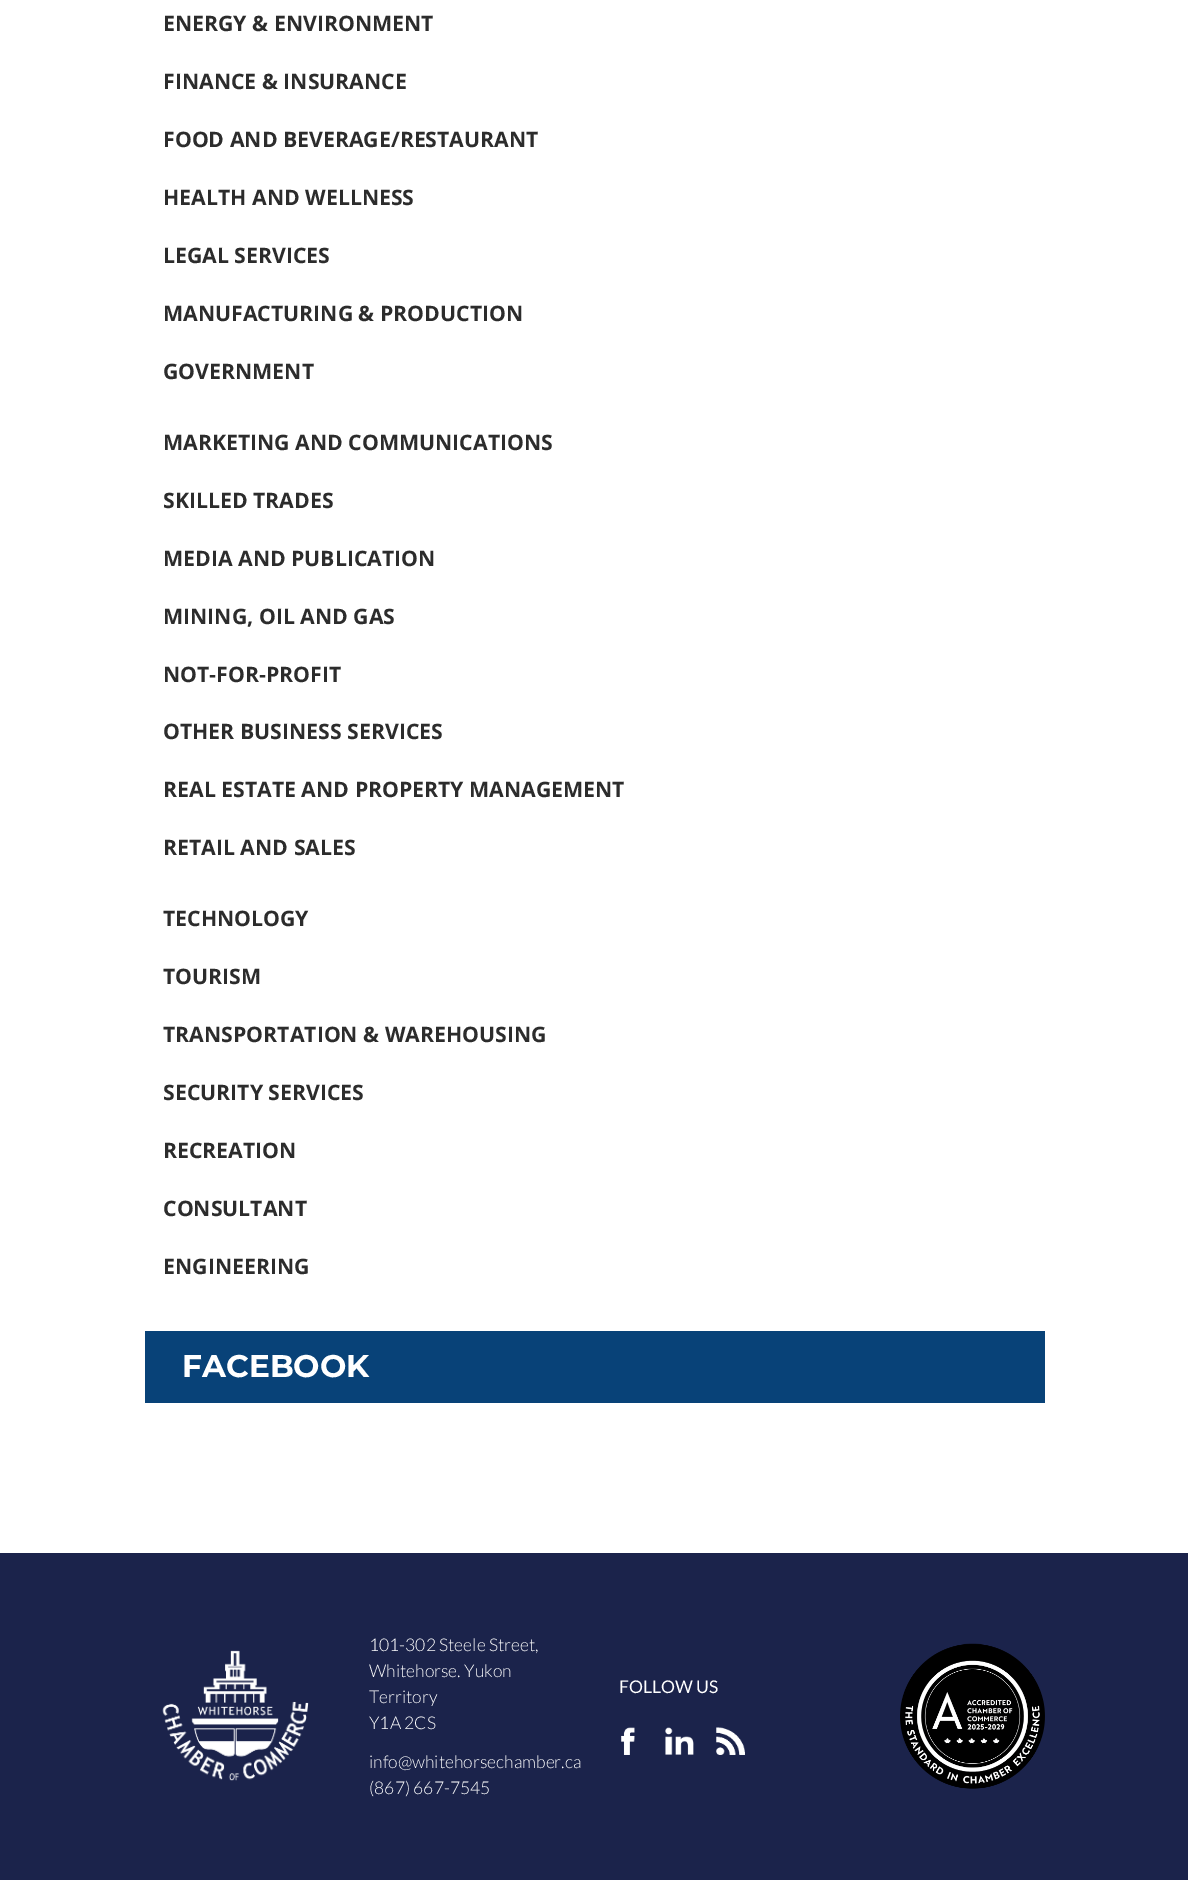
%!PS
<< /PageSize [1188 1880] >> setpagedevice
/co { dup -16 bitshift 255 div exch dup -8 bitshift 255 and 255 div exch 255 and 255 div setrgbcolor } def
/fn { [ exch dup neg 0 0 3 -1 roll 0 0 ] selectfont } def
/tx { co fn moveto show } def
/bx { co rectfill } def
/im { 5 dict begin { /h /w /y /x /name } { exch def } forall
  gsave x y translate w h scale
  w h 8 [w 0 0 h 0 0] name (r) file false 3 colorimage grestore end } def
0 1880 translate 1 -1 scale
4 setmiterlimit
0 0 1188 1880 16#FFFFFF bx
145 1331 900 72 16#084278 bx
0 1553 1188 327 16#1B234B bx
(media/1.raw) 162 1650 147 131 im
(media/2.raw) 621 1727 14 28 im
(media/3.raw) 665 1727 29 28 im
(media/4.raw) 716 1727 29 28 im
(media/5.raw) 900 1643 145 146 im
(ENERGY & ENVIRONMENT) 163 31 /OpenSans-Bold 21.25 16#2C2C2C tx
(FINANCE & INSURANCE) 163 89 /OpenSans-Bold 21.25 16#2C2C2C tx
(FOOD AND BEVERAGE/RESTAURANT) 163 147 /OpenSans-Bold 21.25 16#2C2C2C tx
(HEALTH AND WELLNESS) 163 205 /OpenSans-Bold 21.25 16#2C2C2C tx
(LEGAL SERVICES) 163 263 /OpenSans-Bold 21.25 16#2C2C2C tx
(MANUFACTURING & PRODUCTION) 163 321 /OpenSans-Bold 21.25 16#2C2C2C tx
(GOVERNMENT) 163 379 /OpenSans-Bold 21.25 16#2C2C2C tx
(MARKETING AND COMMUNICATIONS) 163 450 /OpenSans-Bold 21.25 16#2C2C2C tx
(SKILLED TRADES) 163 508 /OpenSans-Bold 21.25 16#2C2C2C tx
(MEDIA AND PUBLICATION) 163 566 /OpenSans-Bold 21.25 16#2C2C2C tx
(MINING, OIL AND GAS) 163 624 /OpenSans-Bold 21.25 16#2C2C2C tx
(NOT-FOR-PROFIT) 163 682 /OpenSans-Bold 21.25 16#2C2C2C tx
(OTHER BUSINESS SERVICES) 163 739 /OpenSans-Bold 21.25 16#2C2C2C tx
(REAL ESTATE AND PROPERTY MANAGEMENT) 163 797 /OpenSans-Bold 21.25 16#2C2C2C tx
(RETAIL AND SALES) 163 855 /OpenSans-Bold 21.25 16#2C2C2C tx
(TECHNOLOGY) 163 926 /OpenSans-Bold 21.25 16#2C2C2C tx
(TOURISM) 163 984 /OpenSans-Bold 21.25 16#2C2C2C tx
(TRANSPORTATION & WAREHOUSING) 163 1042 /OpenSans-Bold 21.25 16#2C2C2C tx
(SECURITY SERVICES) 163 1100 /OpenSans-Bold 21.25 16#2C2C2C tx
(RECREATION) 163 1158 /OpenSans-Bold 21.25 16#2C2C2C tx
(CONSULTANT) 163 1216 /OpenSans-Bold 21.25 16#2C2C2C tx
(ENGINEERING) 163 1274 /OpenSans-Bold 21.25 16#2C2C2C tx
(FACEBOOK) 182 1377 /Montserrat-Bold 31.25 16#FFFFFF tx
(101-302 Steele Street,) 369 1651 /Lato-Light 17.5 16#FFFFFF tx
(Whitehorse. Yukon) 369 1677 /Lato-Light 17.5 16#FFFFFF tx
(Territory) 369 1703 /Lato-Light 17.5 16#FFFFFF tx
(Y1A 2CS) 369 1729 /Lato-Light 17.5 16#FFFFFF tx
(info@whitehorsechamber.ca) 369 1768 /Lato-Light 17.5 16#FFFFFF tx
(\(867\) 667-7545) 369 1794 /Lato-Light 17.5 16#FFFFFF tx
(FOLLOW US) 619 1693 /Lato-Regular 17.5 16#FFFFFF tx
showpage
